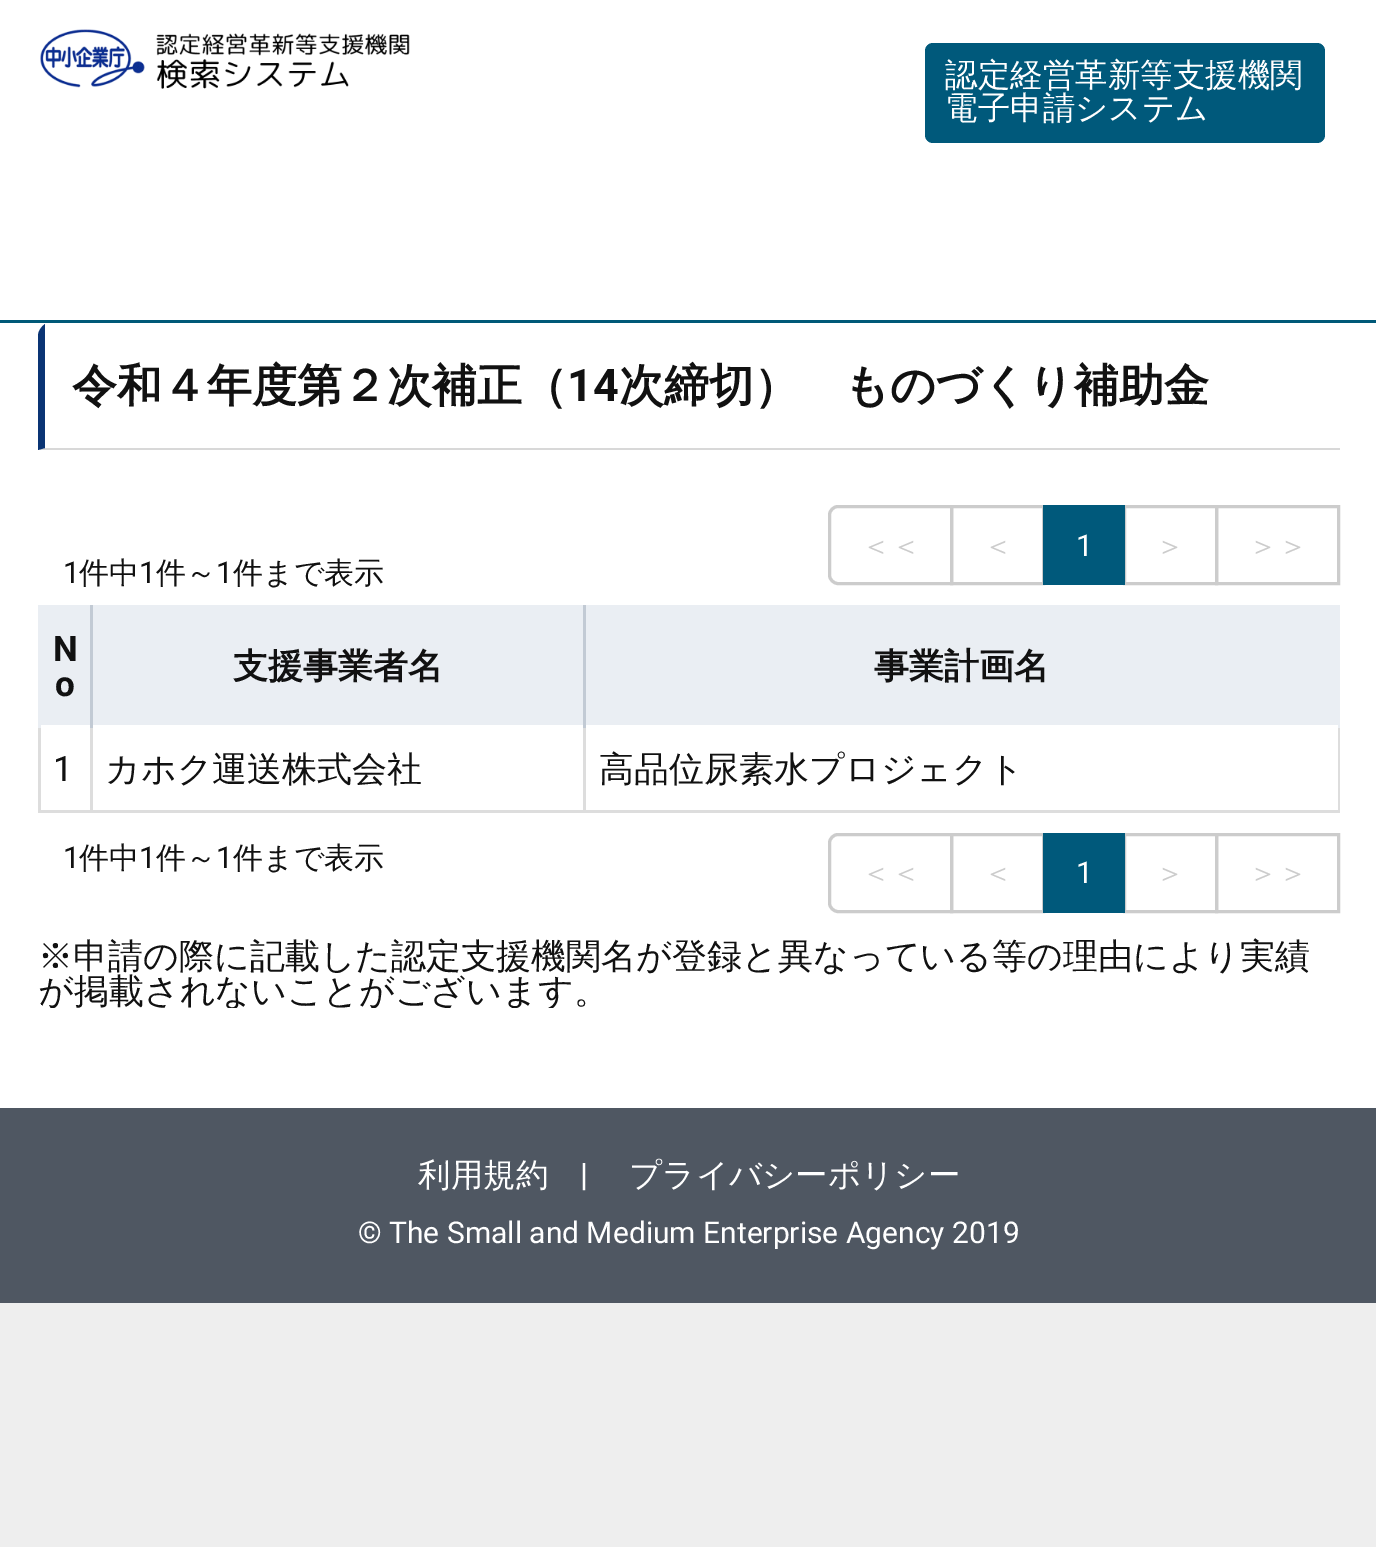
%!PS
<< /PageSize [1376 1547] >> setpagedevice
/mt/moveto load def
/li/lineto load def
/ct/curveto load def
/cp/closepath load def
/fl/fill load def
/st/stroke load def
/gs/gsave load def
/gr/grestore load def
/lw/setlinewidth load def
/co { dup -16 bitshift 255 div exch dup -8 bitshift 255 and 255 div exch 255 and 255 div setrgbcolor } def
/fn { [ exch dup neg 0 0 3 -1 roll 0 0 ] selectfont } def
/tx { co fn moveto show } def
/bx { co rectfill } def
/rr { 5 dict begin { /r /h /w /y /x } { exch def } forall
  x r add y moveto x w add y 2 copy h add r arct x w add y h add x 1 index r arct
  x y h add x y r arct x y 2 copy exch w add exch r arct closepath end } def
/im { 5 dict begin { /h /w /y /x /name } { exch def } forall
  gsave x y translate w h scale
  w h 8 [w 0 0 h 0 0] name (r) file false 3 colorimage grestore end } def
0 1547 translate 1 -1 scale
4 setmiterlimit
0 0 1376 1547 16#EEEEEE bx
0 0 1376 320 16#FFFFFF bx
0 320 1376 3 16#005978 bx
(media/1.raw) 40 29 370 60 im
16#00597B co
925 43 400 100 8 rr fl
0 323 1376 785 16#FFFFFF bx
16#D8D8D8 co
1340 450 mt 38 450 li 45 448 li 1340 448 li cp fl
16#0A3474 co
38 450 mt 45 448 li 45 324 li 41 327 38 331 38 336 ct cp fl
16#CCCCCC co
3 lw
838 506.5 mt 951.5 506.5 li 951.5 583.5 li 838 583.5 li 833.5 583.5 829.5 579.5 829.5 575 ct 829.5 515 li 829.5 510.5 833.5 506.5 838 506.5 ct cp st
951.5 506.5 92 77 rectstroke
1124.5 506.5 92 77 rectstroke
1043 505 82 80 16#00597B bx
16#CCCCCC co
1216.5 506.5 122 77 rectstroke
41 605 49 120 16#EAEEF3 bx
1338 725 2 88 16#DDDDDD bx
38 810 1302 3 16#DDDDDD bx
90 725 3 88 16#DDDDDD bx
90 605 3 123 16#C2CAD4 bx
38 725 3 88 16#DDDDDD bx
38 605 3 123 16#EAEEF3 bx
93 605 490 120 16#EAEEF3 bx
583 725 3 88 16#DDDDDD bx
583 605 3 123 16#C2CAD4 bx
586 605 752 120 16#EAEEF3 bx
1338 605 2 123 16#EAEEF3 bx
16#CCCCCC co
838 834.5 mt 951.5 834.5 li 951.5 911.5 li 838 911.5 li 833.5 911.5 829.5 907.5 829.5 903 ct 829.5 843 li 829.5 838.5 833.5 834.5 838 834.5 ct cp st
951.5 834.5 92 77 rectstroke
1124.5 834.5 92 77 rectstroke
1043 833 82 80 16#00597B bx
16#CCCCCC co
1216.5 834.5 122 77 rectstroke
0 1108 1376 195 16#4F5762 bx
(認定経営革新等支援機関) 945 86 /WenQuanYiZenHei-Medium 32.5 16#FFFFFF tx
(電子申請システム) 945 119 /WenQuanYiZenHei-Medium 32.5 16#FFFFFF tx
(令和４年度第２次補正（) 72 401 /WenQuanYiZenHei-Bold 45 16#111111 tx
(14) 567 401 /Roboto-Bold 45 16#111111 tx
(次締切）　ものづくり補助金) 619 401 /WenQuanYiZenHei-Bold 45 16#111111 tx
(＜＜) 861 556 /WenQuanYiZenHei-Medium 30 16#CCCCCC tx
(＜) 983 556 /WenQuanYiZenHei-Medium 30 16#CCCCCC tx
(1) 1076 556 /Roboto-Regular 30 16#FFFFFF tx
(＞) 1155 556 /WenQuanYiZenHei-Medium 30 16#CCCCCC tx
(＞＞) 1248 556 /WenQuanYiZenHei-Medium 30 16#CCCCCC tx
(1) 63 583 /Roboto-Regular 30 16#111111 tx
(件中) 79 583 /WenQuanYiZenHei-Medium 30 16#111111 tx
(1) 139 583 /Roboto-Regular 30 16#111111 tx
(件～) 156 583 /WenQuanYiZenHei-Medium 30 16#111111 tx
(1) 216 583 /Roboto-Regular 30 16#111111 tx
(件まで表示) 233 583 /WenQuanYiZenHei-Medium 30 16#111111 tx
(N) 53 661 /Roboto-Bold 35 16#111111 tx
(o) 55 696 /Roboto-Bold 35 16#111111 tx
(支援事業者名) 233 678 /WenQuanYiZenHei-Bold 35 16#111111 tx
(事業計画名) 874 678 /WenQuanYiZenHei-Bold 35 16#111111 tx
(1) 53 781 /Roboto-Regular 35 16#111111 tx
(カホク運送株式会社) 105 781 /WenQuanYiZenHei-Medium 35 16#111111 tx
(高品位尿素水プロジェクト) 599 781 /WenQuanYiZenHei-Medium 35 16#111111 tx
(1) 63 868 /Roboto-Regular 30 16#111111 tx
(件中) 79 868 /WenQuanYiZenHei-Medium 30 16#111111 tx
(1) 139 868 /Roboto-Regular 30 16#111111 tx
(件～) 156 868 /WenQuanYiZenHei-Medium 30 16#111111 tx
(1) 216 868 /Roboto-Regular 30 16#111111 tx
(件まで表示) 233 868 /WenQuanYiZenHei-Medium 30 16#111111 tx
(＜＜) 861 883 /WenQuanYiZenHei-Medium 30 16#CCCCCC tx
(＜) 983 883 /WenQuanYiZenHei-Medium 30 16#CCCCCC tx
(1) 1076 883 /Roboto-Regular 30 16#FFFFFF tx
(＞) 1155 883 /WenQuanYiZenHei-Medium 30 16#CCCCCC tx
(＞＞) 1248 883 /WenQuanYiZenHei-Medium 30 16#CCCCCC tx
(※申請の際に記載した認定支援機関名が登録と異なっている等の理由により実績) 38 968 /WenQuanYiZenHei-Medium 35 16#111111 tx
gs
38 323 1302 685 13 rr clip newpath
(が掲載されないことがございます。) 38 1003 /WenQuanYiZenHei-Medium 35 16#111111 tx
gr
(利用規約) 418 1186 /WenQuanYiZenHei-Medium 32.5 16#FFFFFF tx
(|) 580 1186 /Roboto-Regular 32.5 16#FFFFFF tx
(プライバシーポリシー) 629 1186 /WenQuanYiZenHei-Medium 32.5 16#FFFFFF tx
(© The Small and Medium Enterprise Agency 2019) 358 1243 /Roboto-Regular 30 16#FFFFFF tx
showpage
